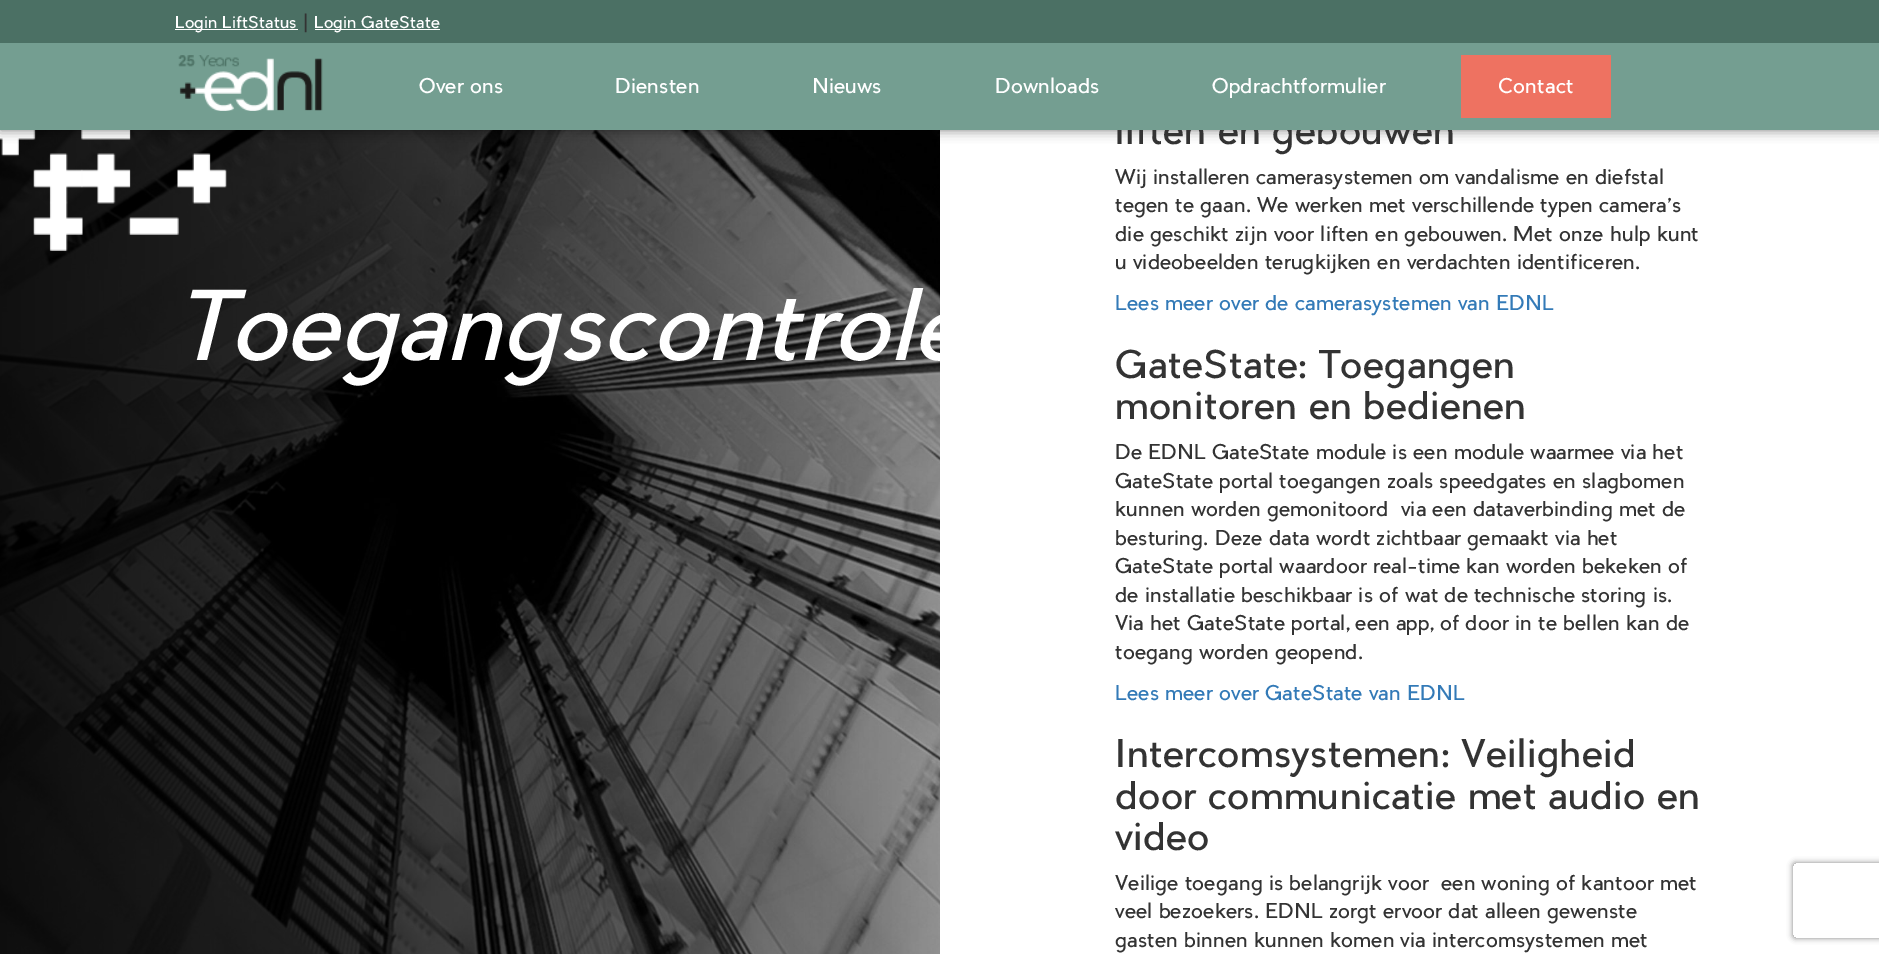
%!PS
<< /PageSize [1879 954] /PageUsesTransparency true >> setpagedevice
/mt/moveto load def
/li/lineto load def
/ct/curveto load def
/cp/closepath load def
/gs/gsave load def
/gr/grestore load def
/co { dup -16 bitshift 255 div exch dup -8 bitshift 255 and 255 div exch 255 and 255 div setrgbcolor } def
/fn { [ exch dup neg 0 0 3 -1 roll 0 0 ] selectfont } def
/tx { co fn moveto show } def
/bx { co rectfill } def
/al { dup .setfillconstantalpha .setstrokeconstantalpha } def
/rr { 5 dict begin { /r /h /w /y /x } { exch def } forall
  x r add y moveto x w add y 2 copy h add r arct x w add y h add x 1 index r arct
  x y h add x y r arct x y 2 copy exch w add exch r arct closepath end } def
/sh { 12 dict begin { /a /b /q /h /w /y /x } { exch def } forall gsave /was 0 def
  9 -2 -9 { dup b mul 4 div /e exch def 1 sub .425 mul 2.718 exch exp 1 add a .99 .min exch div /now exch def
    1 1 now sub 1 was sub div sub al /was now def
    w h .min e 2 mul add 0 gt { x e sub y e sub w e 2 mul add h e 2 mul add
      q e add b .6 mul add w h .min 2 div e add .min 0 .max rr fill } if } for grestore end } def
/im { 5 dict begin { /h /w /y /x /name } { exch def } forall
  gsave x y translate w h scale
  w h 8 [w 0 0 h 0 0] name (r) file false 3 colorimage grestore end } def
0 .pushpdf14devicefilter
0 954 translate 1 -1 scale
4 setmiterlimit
0 0 1879 954 16#FFFFFF bx
(media/2.raw) 0 130 940 824 im
(media/3.raw) 0 130 227 121 im
16#000000 co
0 0 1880 130 0 6 .5 sh
0 0 1879 43 16#4B7064 bx
175 29 123 1 16#FFFFFF bx
315 29 125 1 16#FFFFFF bx
gs
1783 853 mt 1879 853 li 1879 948 li 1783 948 li cp 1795.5 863 mt 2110.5 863 li 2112 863 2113 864 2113 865.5 ct 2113 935.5 li 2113 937 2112 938 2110.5 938 ct 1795.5 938 li 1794 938 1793 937 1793 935.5 ct 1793 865.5 li 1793 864 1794 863 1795.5 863 ct cp eoclip newpath
16#808080 co
1793 863 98 75 2.5 3 1 sh
gr
(Login LiftStatus) 175 28 /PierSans-Regular 16 16#FFFFFF tx
(|) 303 28 /LiberationSans-Regular 20 16#333333 tx
(Login GateState) 314 28 /PierSans-Regular 16 16#FFFFFF tx
(Toegangscontrole) 175 360 /PierSans-Italic 93.75 16#FFFFFF tx
(liften en gebouwen) 1115 144 /PierSans-Regular 37.5 16#333333 tx
0 43 1879 87 16#749E91 bx
1461 55 150 63 16#EE7261 bx
(Contact) 1498 93 /PierSans-Regular 20 16#FFFFFF tx
(Opdrachtformulier) 1212 93 /PierSans-Regular 20 16#FFFFFF tx
(Downloads) 995 93 /PierSans-Regular 20 16#FFFFFF tx
(Nieuws) 812 93 /PierSans-Regular 20 16#FFFFFF tx
(Diensten) 615 93 /PierSans-Regular 20 16#FFFFFF tx
(Over ons) 419 93 /PierSans-Regular 20 16#FFFFFF tx
(media/1.raw) 178 55 145 56 im
(Wij installeren camerasystemen om vandalisme en diefstal) 1115 184 /PierSans-Regular 20 16#333333 tx
(tegen te gaan. We werken met verschillende typen camera’s) 1115 212 /PierSans-Regular 20 16#333333 tx
(die geschikt zijn voor liften en gebouwen. Met onze hulp kunt) 1115 241 /PierSans-Regular 20 16#333333 tx
(u videobeelden terugkijken en verdachten identificeren.) 1115 269 /PierSans-Regular 20 16#333333 tx
(Lees meer over de camerasystemen van EDNL) 1115 310 /PierSans-Regular 20 16#337AB7 tx
(GateState: Toegangen) 1115 378 /PierSans-Regular 37.5 16#333333 tx
(monitoren en bedienen) 1115 419 /PierSans-Regular 37.5 16#333333 tx
(De EDNL GateState module is een module waarmee via het) 1115 459 /PierSans-Regular 20 16#333333 tx
(GateState portal toegangen zoals speedgates en slagbomen) 1115 488 /PierSans-Regular 20 16#333333 tx
(kunnen worden gemonitoord  via een dataverbinding met de) 1115 516 /PierSans-Regular 20 16#333333 tx
(besturing. Deze data wordt zichtbaar gemaakt via het) 1115 545 /PierSans-Regular 20 16#333333 tx
(GateState portal waardoor real-time kan worden bekeken of) 1115 573 /PierSans-Regular 20 16#333333 tx
(de installatie beschikbaar is of wat de technische storing is.) 1115 602 /PierSans-Regular 20 16#333333 tx
(Via het GateState portal, een app, of door in te bellen kan de) 1115 630 /PierSans-Regular 20 16#333333 tx
(toegang worden geopend.) 1115 659 /PierSans-Regular 20 16#333333 tx
(Lees meer over GateState van EDNL) 1115 700 /PierSans-Regular 20 16#337AB7 tx
(Intercomsystemen: Veiligheid) 1115 767 /PierSans-Regular 37.5 16#333333 tx
(door communicatie met audio en) 1115 809 /PierSans-Regular 37.5 16#333333 tx
(video) 1115 850 /PierSans-Regular 37.5 16#333333 tx
(Veilige toegang is belangrijk voor  een woning of kantoor met) 1115 890 /PierSans-Regular 20 16#333333 tx
(veel bezoekers. EDNL zorgt ervoor dat alleen gewenste) 1115 918 /PierSans-Regular 20 16#333333 tx
(gasten binnen kunnen komen via intercomsystemen met) 1115 947 /PierSans-Regular 20 16#333333 tx
.poppdf14devicefilter showpage
